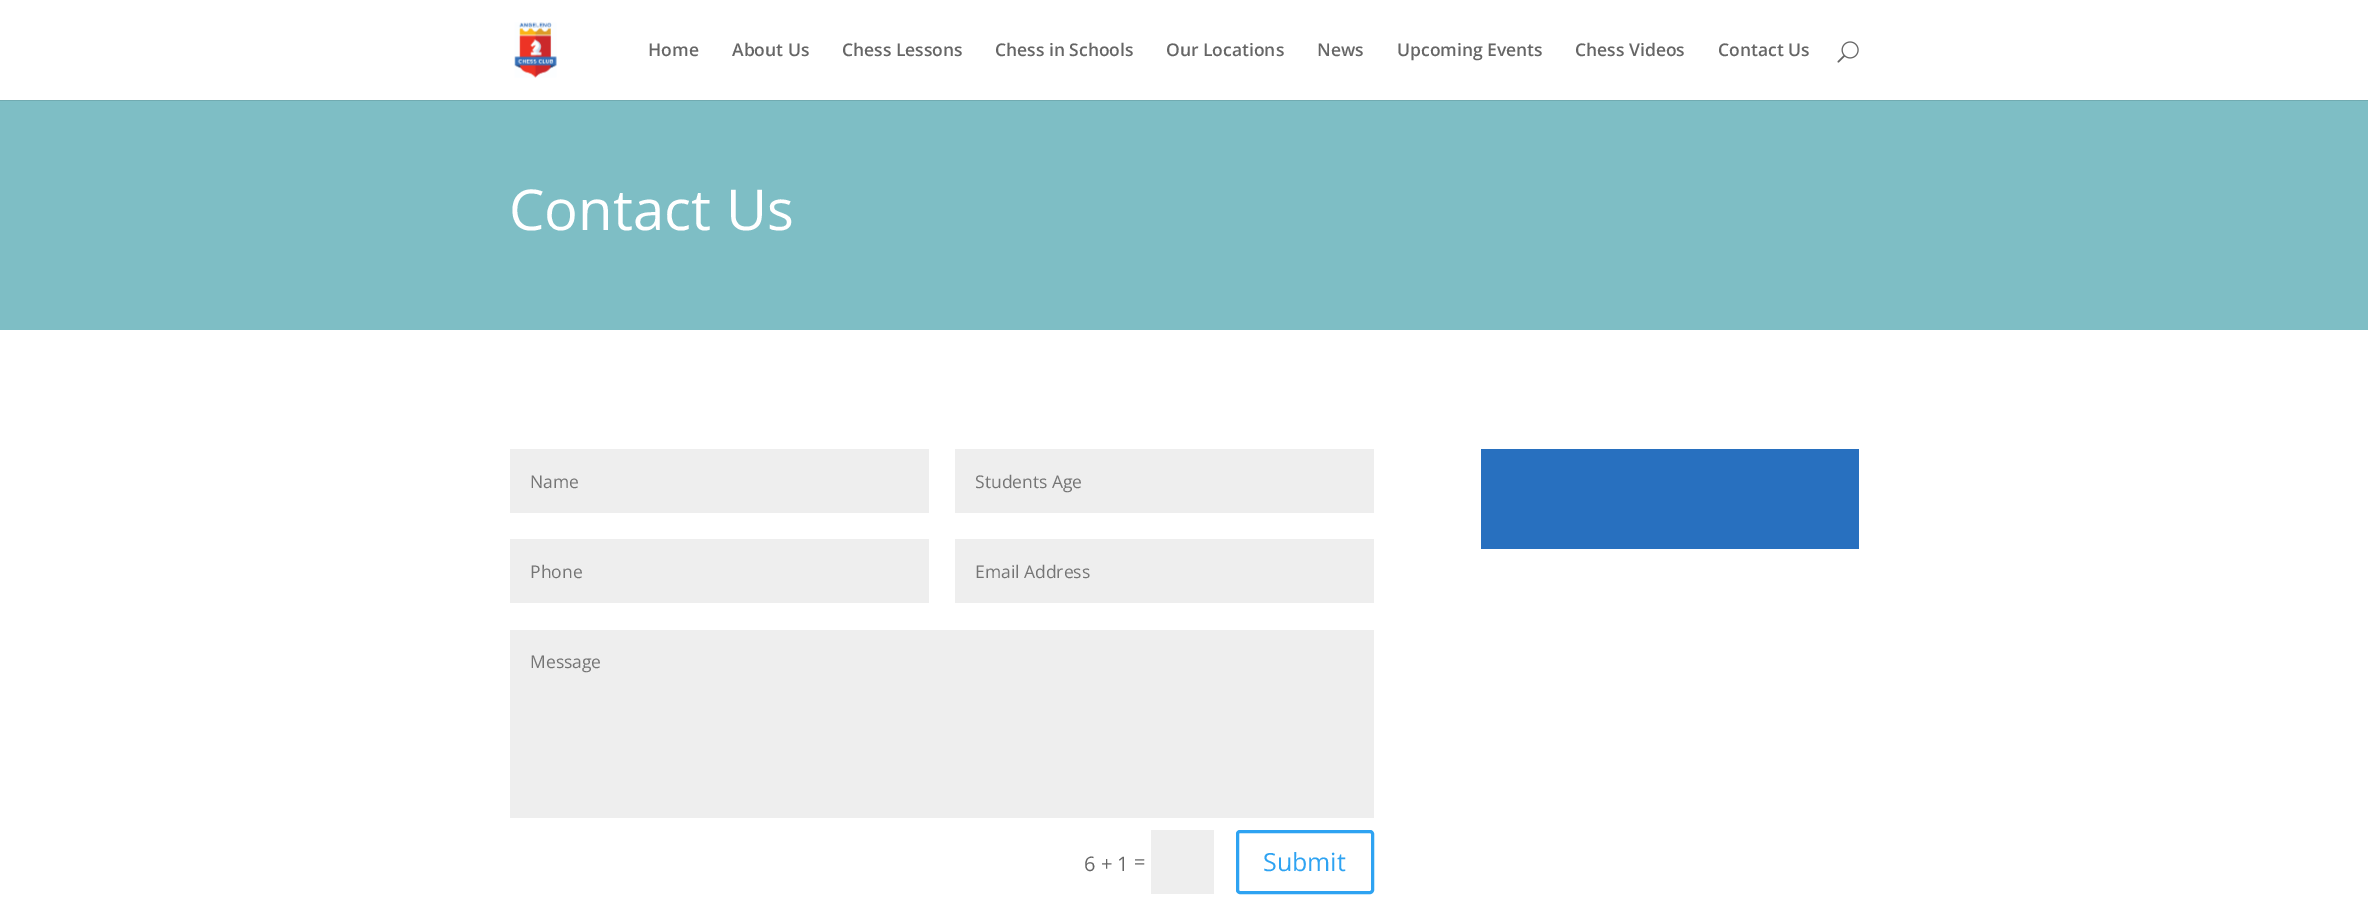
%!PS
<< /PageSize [2368 897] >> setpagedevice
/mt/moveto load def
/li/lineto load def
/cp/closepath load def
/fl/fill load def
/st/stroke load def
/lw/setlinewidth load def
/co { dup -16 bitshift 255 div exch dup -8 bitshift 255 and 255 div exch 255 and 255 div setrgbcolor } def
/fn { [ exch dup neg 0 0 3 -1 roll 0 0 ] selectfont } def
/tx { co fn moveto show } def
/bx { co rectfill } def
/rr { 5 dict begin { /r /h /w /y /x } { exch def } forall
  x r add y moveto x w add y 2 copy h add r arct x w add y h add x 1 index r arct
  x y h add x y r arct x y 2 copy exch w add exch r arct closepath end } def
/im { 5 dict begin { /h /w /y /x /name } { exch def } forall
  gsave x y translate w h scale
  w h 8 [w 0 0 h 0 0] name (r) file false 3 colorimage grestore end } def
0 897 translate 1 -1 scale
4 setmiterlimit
0 0 2368 897 16#FFFFFF bx
16#71ABB1 co
0 100 mt 0 101 li 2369 101 li 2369 1 li 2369 100 li cp fl
(media/1.raw) 514 22 43 56 im
(media/2.raw) 1837 41 22 22 im
0 101 2368 229 16#7EBEC5 bx
510 449 419 64 16#EEEEEE bx
955 449 419 64 16#EEEEEE bx
510 539 419 64 16#EEEEEE bx
955 539 419 64 16#EEEEEE bx
510 630 864 188 16#EEEEEE bx
1151 830 63 64 16#EEEEEE bx
16#2EA3F2 co
3 lw
1237.5 831.5 135 61 2.5 rr st
1481 449 378 100 16#2870BF bx
(Home) 648 56 /OpenSans-SemiBold 17.5 16#666666 tx
(About Us) 732 56 /OpenSans-SemiBold 17.5 16#666666 tx
(Chess Lessons) 842 56 /OpenSans-SemiBold 17.5 16#666666 tx
(Chess in Schools) 995 56 /OpenSans-SemiBold 17.5 16#666666 tx
(Our Locations) 1166 56 /OpenSans-SemiBold 17.5 16#666666 tx
(News) 1317 56 /OpenSans-SemiBold 17.5 16#666666 tx
(Upcoming Events) 1397 56 /OpenSans-SemiBold 17.5 16#666666 tx
(Chess Videos) 1575 56 /OpenSans-SemiBold 17.5 16#666666 tx
(Contact Us) 1718 56 /OpenSans-SemiBold 17.5 16#666666 tx
(Contact Us) 509 230 /OpenSans-Regular 56.25 16#FFFFFF tx
(Name) 530 488 /OpenSans-Regular 17.5 16#757575 tx
(Students Age) 975 488 /OpenSans-Regular 17.5 16#757575 tx
(Phone) 530 578 /OpenSans-Regular 17.5 16#757575 tx
(Email Address) 975 578 /OpenSans-Regular 17.5 16#757575 tx
(Message) 530 668 /OpenSans-Regular 17.5 16#757575 tx
(6 + 1) 1084 871 /OpenSans-Regular 20 16#666666 tx
(=) 1134 869 /OpenSans-Regular 20 16#666666 tx
(Submit) 1263 871 /OpenSans-Regular 25 16#2EA3F2 tx
showpage
